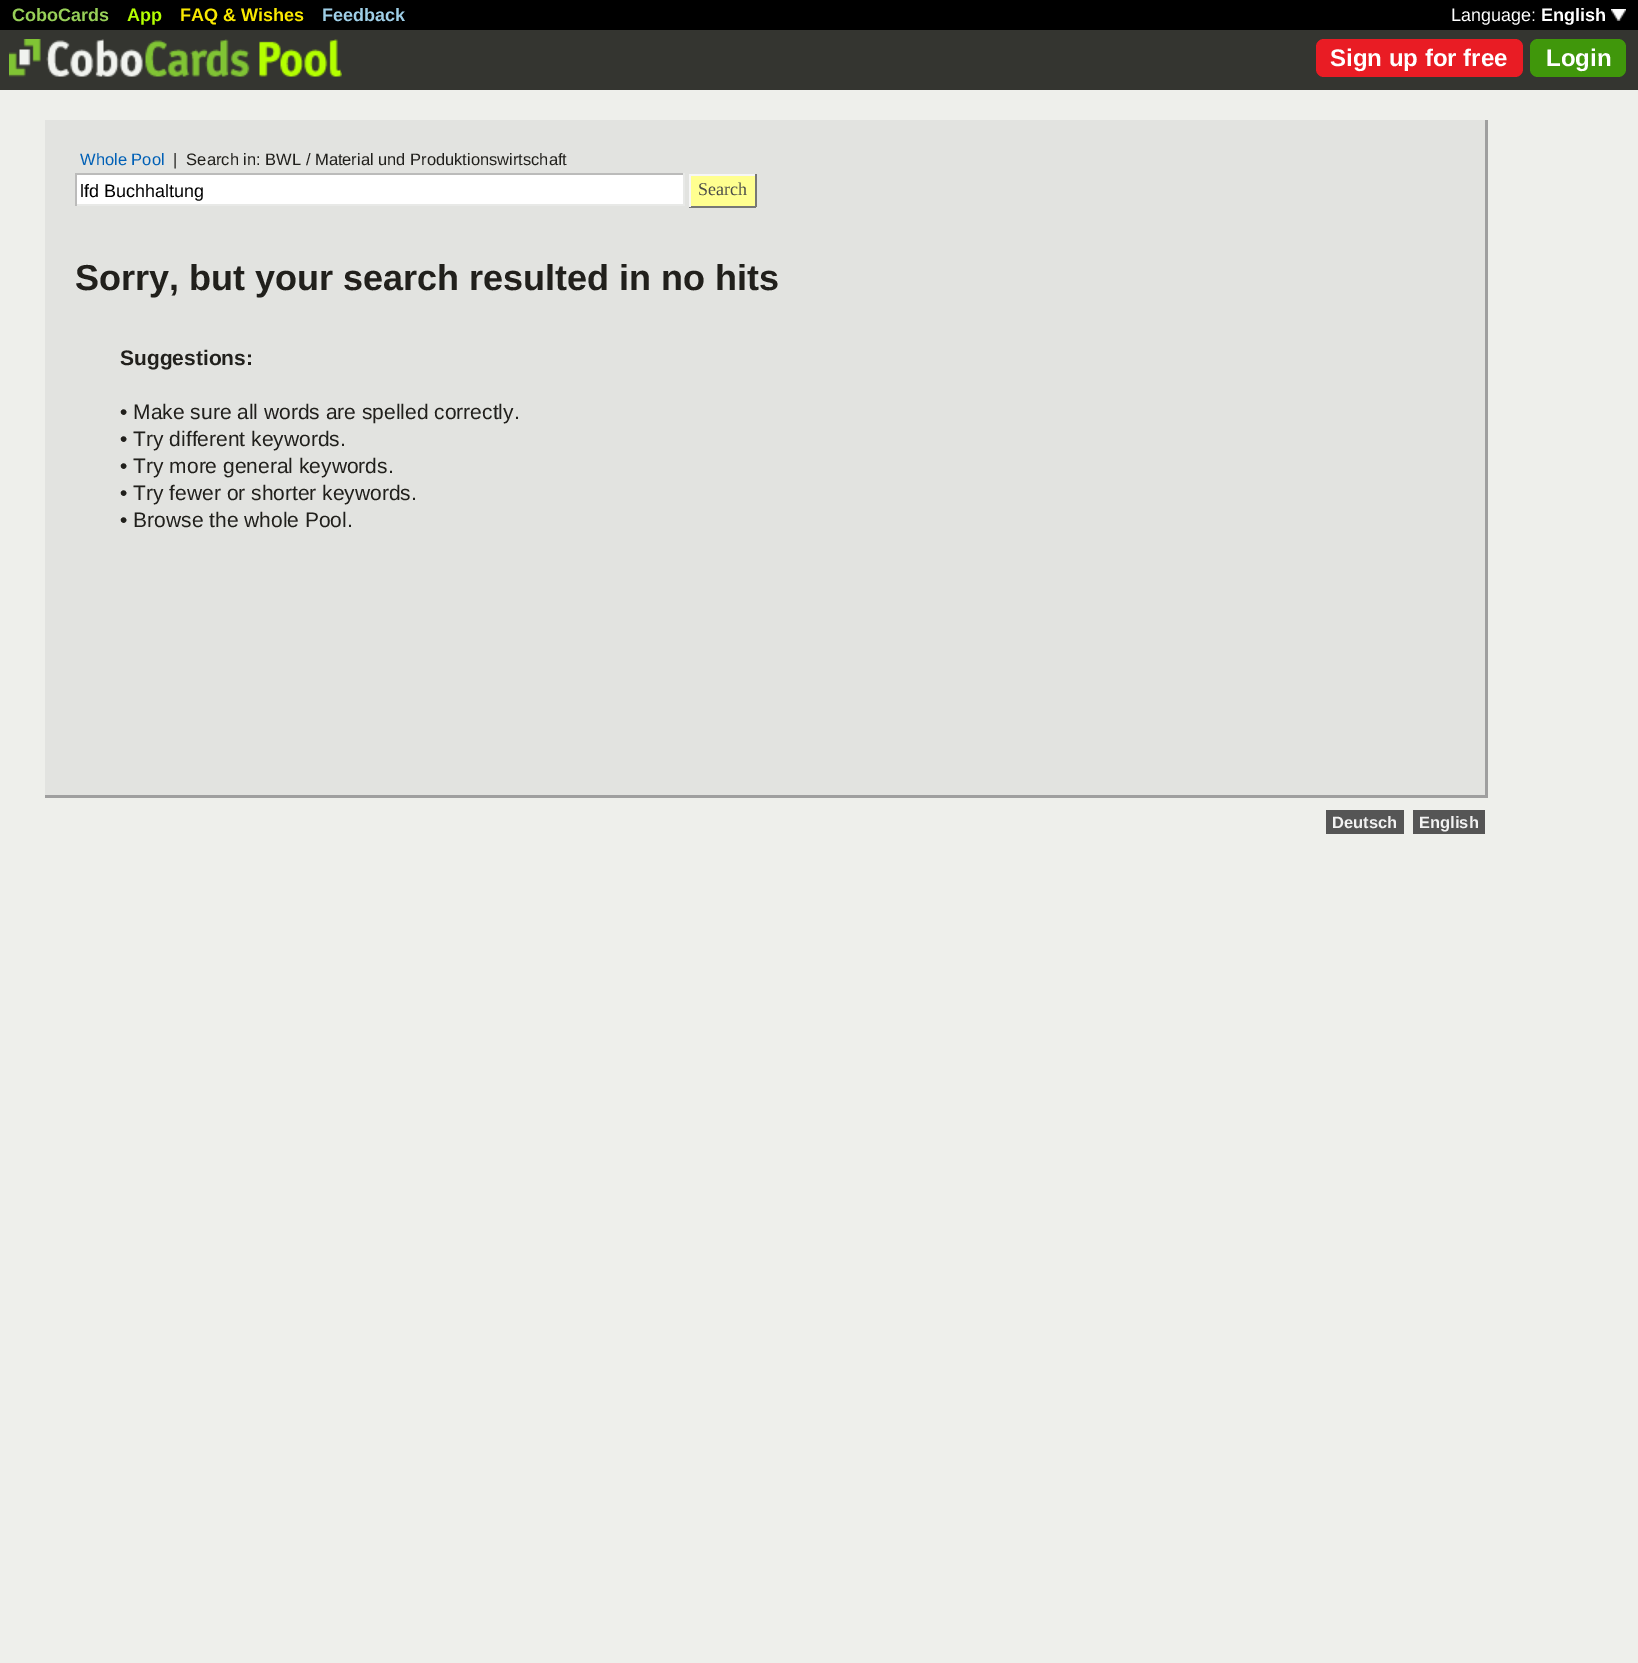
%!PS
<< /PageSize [1638 1663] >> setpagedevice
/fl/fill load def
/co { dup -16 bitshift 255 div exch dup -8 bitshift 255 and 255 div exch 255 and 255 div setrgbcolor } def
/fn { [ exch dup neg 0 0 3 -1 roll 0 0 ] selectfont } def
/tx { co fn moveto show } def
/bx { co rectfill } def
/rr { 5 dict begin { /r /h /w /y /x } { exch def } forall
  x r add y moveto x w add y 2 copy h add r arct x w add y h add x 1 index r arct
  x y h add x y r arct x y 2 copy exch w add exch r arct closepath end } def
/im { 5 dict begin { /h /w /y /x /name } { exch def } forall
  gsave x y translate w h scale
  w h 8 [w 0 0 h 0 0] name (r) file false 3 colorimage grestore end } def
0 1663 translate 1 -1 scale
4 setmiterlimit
0 0 1638 1663 16#EEEFEB bx
0 30 1638 60 16#343530 bx
0 0 1638 30 16#000000 bx
(media/1.raw) 1611 9 15 12 im
(media/2.raw) 9 39 333 38 im
16#E91C24 co
1316 39 207 38 8 rr fl
16#40970B co
1530 39 96 38 8 rr fl
45 120 1440 675 16#E2E3E0 bx
1485 120 3 678 16#9F9F9F bx
45 795 1443 3 16#9F9F9F bx
77 175 606 29 16#FFFFFF bx
75 173 609 2 16#BBBBBA bx
683 173 2 33 16#E8E9E7 bx
75 204 609 2 16#E8E9E7 bx
75 173 2 33 16#BBBBBA bx
691 176 64 30 16#FFFF90 bx
689 174 67 2 16#F6F6F6 bx
755 174 2 33 16#777876 bx
689 206 67 2 16#777876 bx
689 174 2 33 16#F6F6F6 bx
1326 810 78 24 16#555555 bx
1413 810 72 24 16#555555 bx
(CoboCards) 12 21 /LiberationSans-Bold 18 16#97CF58 tx
(App) 127 21 /LiberationSans-Bold 18 16#B4FF00 tx
(FAQ & Wishes) 180 21 /LiberationSans-Bold 18 16#F9E800 tx
(Feedback) 322 21 /LiberationSans-Bold 18 16#9FCFE7 tx
(Language:) 1451 21 /LiberationSans-Regular 18 16#FFFFFF tx
(English) 1541 21 /LiberationSans-Bold 18 16#FFFFFF tx
(Sign up for free) 1330 66 /LiberationSans-Bold 24 16#FFFFFF tx
(Login) 1546 66 /LiberationSans-Bold 24 16#FFFFFF tx
(Whole Pool) 80 165 /LiberationSans-Regular 16.5 16#0060B6 tx
(|  Search in: BWL / Material und Produktionswirtschaft) 173 165 /LiberationSans-Regular 16.5 16#21201C tx
(lfd Buchhaltung) 80 197 /LiberationSans-Regular 18 16#000000 tx
(Search) 698 195 /LiberationSerif-Regular 18 16#4B4C49 tx
(Sorry, but your search resulted in no hits) 75 290 /LiberationSans-Bold 36 16#21201C tx
(Suggestions:) 120 365 /LiberationSans-Bold 21 16#21201C tx
(• Make sure all words are spelled correctly.) 120 419 /LiberationSans-Regular 21 16#21201C tx
(• Try different keywords.) 120 446 /LiberationSans-Regular 21 16#21201C tx
(• Try more general keywords.) 120 473 /LiberationSans-Regular 21 16#21201C tx
(• Try fewer or shorter keywords.) 120 500 /LiberationSans-Regular 21 16#21201C tx
(• Browse the whole Pool.) 120 527 /LiberationSans-Regular 21 16#21201C tx
(Deutsch) 1332 828 /LiberationSans-Bold 16.5 16#F2F2F2 tx
(English) 1419 828 /LiberationSans-Bold 16.5 16#F2F2F2 tx
showpage
